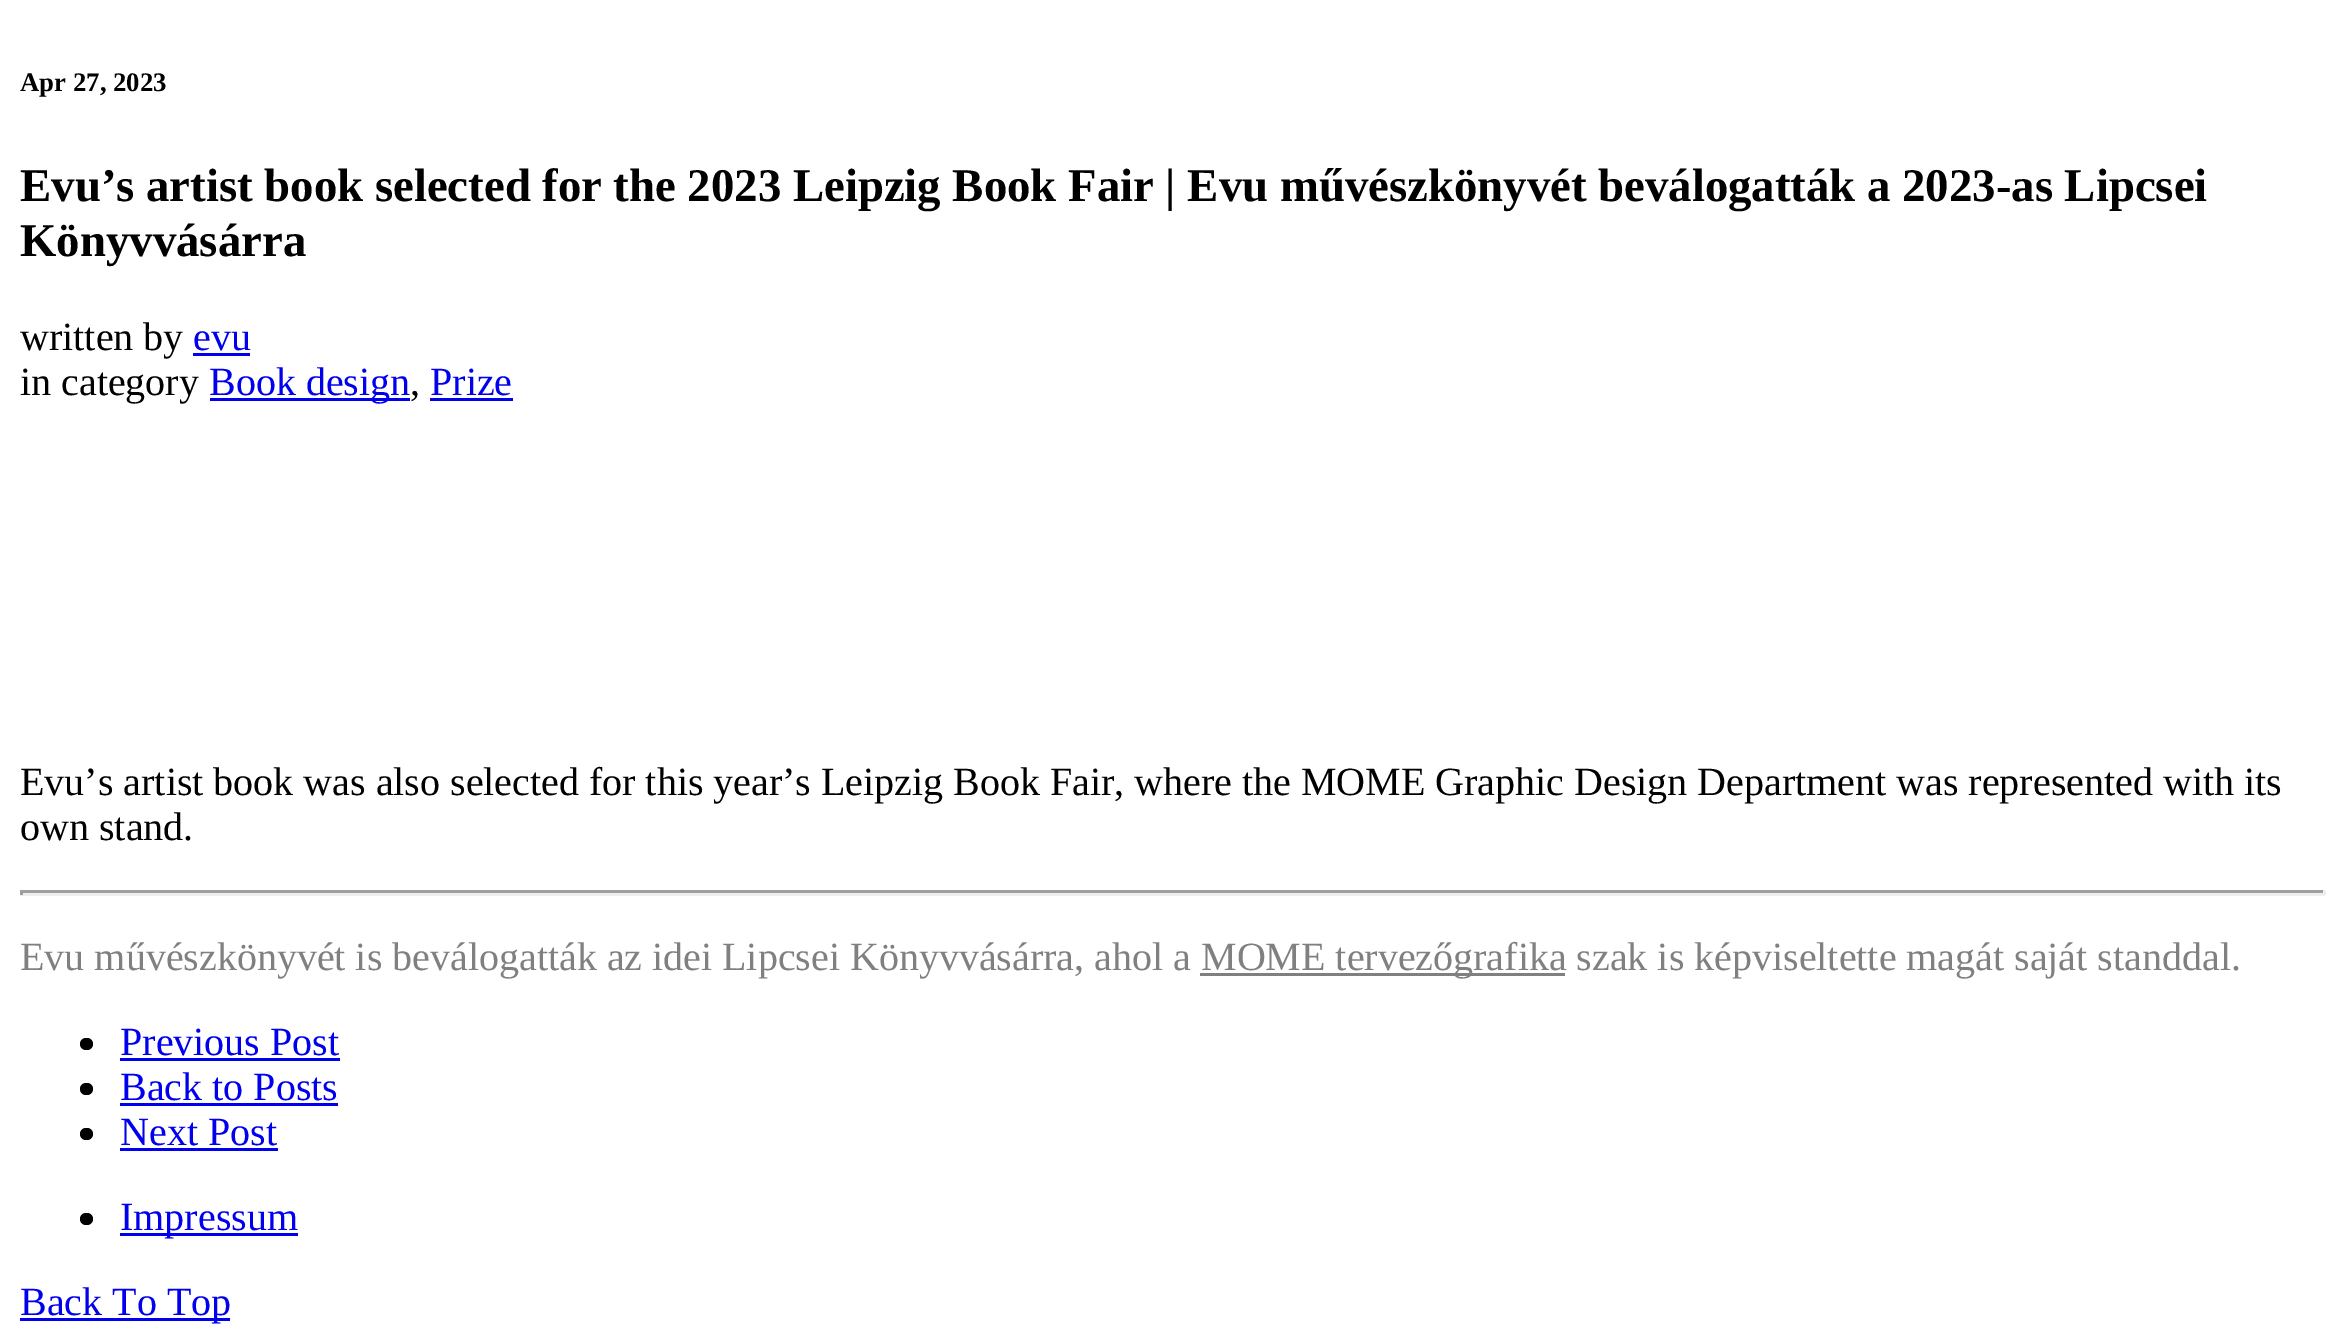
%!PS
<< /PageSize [2345 1343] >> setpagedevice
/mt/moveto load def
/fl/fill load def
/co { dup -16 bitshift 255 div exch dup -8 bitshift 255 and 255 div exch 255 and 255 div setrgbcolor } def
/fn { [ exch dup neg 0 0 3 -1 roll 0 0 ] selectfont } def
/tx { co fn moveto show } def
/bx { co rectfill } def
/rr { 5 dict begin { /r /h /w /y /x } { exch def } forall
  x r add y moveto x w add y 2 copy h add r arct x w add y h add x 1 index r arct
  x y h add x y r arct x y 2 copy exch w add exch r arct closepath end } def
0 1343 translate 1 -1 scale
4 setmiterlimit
0 0 2345 1343 16#FFFFFF bx
193 353 57 3 16#0000EE bx
210 398 200 3 16#0000EE bx
430 398 83 3 16#0000EE bx
20 890 2305 3 16#9F9F9F bx
2323 890 3 5 16#EEEEEE bx
20 893 2305 3 16#EEEEEE bx
20 890 3 5 16#9F9F9F bx
1200 973 365 3 16#808080 bx
16#000000 co
80 1038 13 12 6 rr fl
120 1058 220 3 16#0000EE bx
16#000000 co
80 1083 13 12 6 rr fl
120 1103 218 3 16#0000EE bx
16#000000 co
80 1128 13 12 6 rr fl
120 1148 158 3 16#0000EE bx
16#000000 co
80 1213 13 12 6 rr fl
120 1233 178 3 16#0000EE bx
20 1318 210 3 16#0000EE bx
(Apr 27, 2023) 20 91 /LiberationSerif-Bold 26.75 16#000000 tx
/LiberationSerif-Bold 46.8 fn
20 201 mt -.1 0 32 (Evu’s artist book selected for the 2023 Leipzig Book Fair | Evu művészkönyvét beválogatták a 2023-as Lipcsei) widthshow
(Könyvvásárra) 20 256 /LiberationSerif-Bold 46.8 16#000000 tx
(written by) 20 350 /LiberationSerif-Regular 40 16#000000 tx
(evu) 193 350 /LiberationSerif-Regular 40 16#0000EE tx
(in category) 20 395 /LiberationSerif-Regular 40 16#000000 tx
(Book design) 209 395 /LiberationSerif-Regular 40 16#0000EE tx
(,) 410 395 /LiberationSerif-Regular 40 16#000000 tx
(Prize) 430 395 /LiberationSerif-Regular 40 16#0000EE tx
(Evu’s artist book was also selected for this year’s Leipzig Book Fair, where the MOME Graphic Design Department was represented with its) 20 795 /LiberationSerif-Regular 40 16#000000 tx
(own stand.) 20 840 /LiberationSerif-Regular 40 16#000000 tx
(Evu művészkönyvét is beválogatták az idei Lipcsei Könyvvásárra, ahol a) 20 970 /LiberationSerif-Regular 40 16#808080 tx
(MOME tervezőgrafika szak is képviseltette magát saját standdal.) 1201 970 /LiberationSerif-Regular 40 16#808080 tx
(Previous Post) 120 1055 /LiberationSerif-Regular 40 16#0000EE tx
(Back to Posts) 120 1100 /LiberationSerif-Regular 40 16#0000EE tx
(Next Post) 120 1145 /LiberationSerif-Regular 40 16#0000EE tx
(Impressum) 120 1230 /LiberationSerif-Regular 40 16#0000EE tx
(Back To Top) 20 1315 /LiberationSerif-Regular 40 16#0000EE tx
showpage
